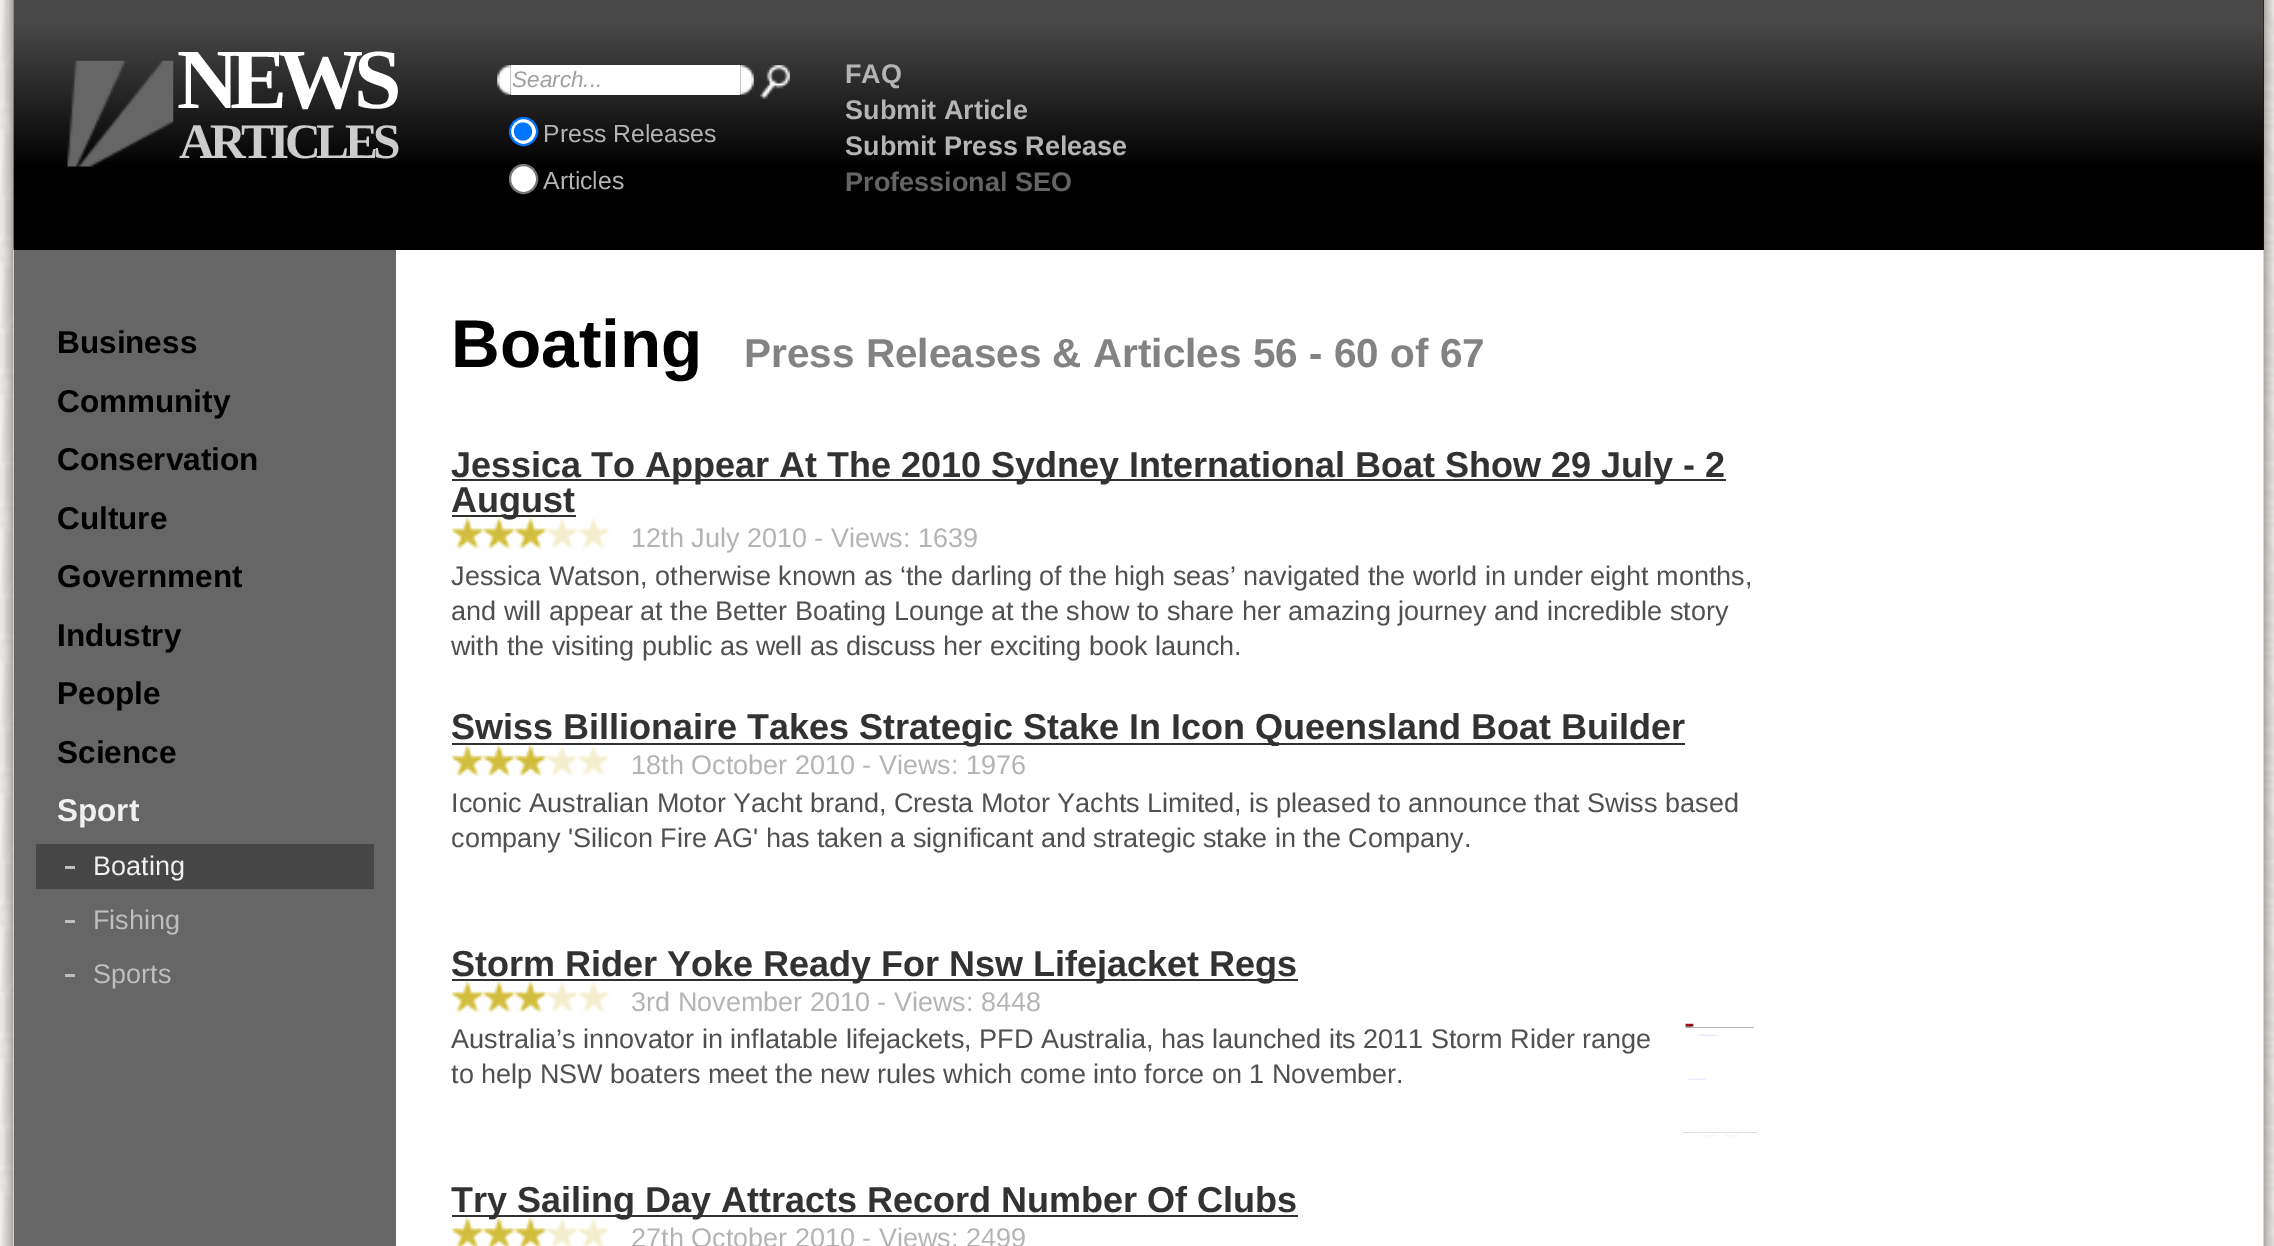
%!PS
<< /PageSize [2274 1246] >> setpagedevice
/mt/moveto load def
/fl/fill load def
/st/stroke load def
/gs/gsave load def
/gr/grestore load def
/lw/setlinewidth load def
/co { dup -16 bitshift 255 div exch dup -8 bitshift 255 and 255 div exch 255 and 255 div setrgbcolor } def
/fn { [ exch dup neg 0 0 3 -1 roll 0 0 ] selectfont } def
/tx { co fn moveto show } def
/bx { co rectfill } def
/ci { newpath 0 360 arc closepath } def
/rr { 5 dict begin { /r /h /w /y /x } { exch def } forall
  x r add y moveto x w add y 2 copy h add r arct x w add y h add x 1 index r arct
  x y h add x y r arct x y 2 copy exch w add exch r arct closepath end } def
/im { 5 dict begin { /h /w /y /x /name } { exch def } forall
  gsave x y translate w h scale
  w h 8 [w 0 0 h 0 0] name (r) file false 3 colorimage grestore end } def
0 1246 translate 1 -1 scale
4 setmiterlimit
0 0 2274 1246 16#FFFFFF bx
(media/1.raw) 0 0 2274 1246 im
396 250 1868 996 16#FFFFFF bx
14 0 2250 250 16#000000 bx
(media/2.raw) 13 0 2251 250 im
(media/3.raw) 0 0 14 250 im
(media/4.raw) 67 60 107 107 im
(media/5.raw) 497 65 14 30 im
511 65 229 30 16#FFFFFF bx
(media/6.raw) 740 65 14 30 im
(media/7.raw) 760 65 30 34 im
523.5 131.5 13.5 ci gs fl gr
16#0075FF co
2 lw
st
523 131.5 9 ci fl
16#FFFFFF co
510 165 27 28 13.5 rr gs fl gr
16#767676 co
st
(media/8.raw) 2263 0 11 250 im
(media/9.raw) 0 249 14 997 im
14 250 382 996 16#666666 bx
452 479 1274 2 16#323232 bx
452 515 124 2 16#323232 bx
(media/14.raw) 578 518 32 31 im
452 743 1233 2 16#323232 bx
452 979 846 2 16#323232 bx
(media/25.raw) 1683 1023 75 114 im
452 1215 846 2 16#323232 bx
(media/31.raw) 2263 249 11 997 im
36 844 338 45 16#464646 bx
65 866 10 3 16#BEBEBE bx
65 920 10 3 16#BEBEBE bx
65 974 10 3 16#BEBEBE bx
/LiberationSerif-Bold 85.5 fn
16#FFFFFF co
177 108 mt -9 0 (NEWS) ashow
/LiberationSerif-Bold 49.5 fn
16#CCCCCC co
179 158 mt -4.5 0 (ARTICLES) ashow
(Search...) 512 87 /LiberationSans-Italic 22.5 16#A0A0A0 tx
(Press Releases) 543 142 /LiberationSans-Regular 24.75 16#B4B4B4 tx
(Articles) 543 189 /LiberationSans-Regular 24.75 16#B4B4B4 tx
(FAQ) 845 83 /LiberationSans-Bold 27 16#B4B4B4 tx
(Submit Article) 845 119 /LiberationSans-Bold 27 16#B4B4B4 tx
(Submit Press Release) 845 155 /LiberationSans-Bold 27 16#B4B4B4 tx
(Professional SEO) 845 191 /LiberationSans-Bold 27 16#646464 tx
(Boating) 451 367 /LiberationSans-Bold 67.5 16#000000 tx
(Press Releases & Articles 56 - 60 of 67) 744 367 /LiberationSans-Bold 40.5 16#828282 tx
(Jessica To Appear At The 2010 Sydney International Boat Show 29 July - 2) 451 477 /LiberationSans-Bold 36 16#323232 tx
(August) 451 512 /LiberationSans-Bold 36 16#323232 tx
(media/10.raw) 452 517 32 32 im
(media/11.raw) 483 517 33 32 im
(media/12.raw) 515 517 32 32 im
(media/13.raw) 546 517 32 32 im
(12th July 2010 - Views: 1639) 631 547 /LiberationSans-Regular 27 16#B4B4B4 tx
(Jessica Watson, otherwise known as ‘the darling of the high seas’ navigated the world in under eight months,) 451 585 /LiberationSans-Regular 27 16#505050 tx
(and will appear at the Better Boating Lounge at the show to share her amazing journey and incredible story) 451 620 /LiberationSans-Regular 27 16#505050 tx
(with the visiting public as well as discuss her exciting book launch.) 451 655 /LiberationSans-Regular 27 16#505050 tx
(Swiss Billionaire Takes Strategic Stake In Icon Queensland Boat Builder) 451 739 /LiberationSans-Bold 36 16#323232 tx
(media/15.raw) 452 744 32 33 im
(media/16.raw) 483 744 33 33 im
(media/17.raw) 515 744 32 33 im
(media/18.raw) 546 745 32 31 im
(media/19.raw) 578 745 32 31 im
(18th October 2010 - Views: 1976) 631 774 /LiberationSans-Regular 27 16#B4B4B4 tx
(Iconic Australian Motor Yacht brand, Cresta Motor Yachts Limited, is pleased to announce that Swiss based) 451 812 /LiberationSans-Regular 27 16#505050 tx
(company 'Silicon Fire AG' has taken a significant and strategic stake in the Company.) 451 847 /LiberationSans-Regular 27 16#505050 tx
(Storm Rider Yoke Ready For Nsw Lifejacket Regs) 451 976 /LiberationSans-Bold 36 16#323232 tx
(media/20.raw) 452 981 32 32 im
(media/21.raw) 483 981 33 32 im
(media/22.raw) 515 981 32 32 im
(media/23.raw) 546 981 32 32 im
(media/24.raw) 578 981 32 32 im
(3rd November 2010 - Views: 8448) 631 1011 /LiberationSans-Regular 27 16#B4B4B4 tx
(Australia’s innovator in inflatable lifejackets, PFD Australia, has launched its 2011 Storm Rider range) 451 1048 /LiberationSans-Regular 27 16#505050 tx
(to help NSW boaters meet the new rules which come into force on 1 November.) 451 1083 /LiberationSans-Regular 27 16#505050 tx
(Try Sailing Day Attracts Record Number Of Clubs) 451 1212 /LiberationSans-Bold 36 16#323232 tx
(media/26.raw) 452 1217 32 29 im
(media/27.raw) 483 1217 33 29 im
(media/28.raw) 515 1217 32 29 im
(media/29.raw) 546 1217 32 29 im
(media/30.raw) 578 1217 32 29 im
(27th October 2010 - Views: 2499) 631 1247 /LiberationSans-Regular 27 16#B4B4B4 tx
(Business) 57 353 /LiberationSans-Bold 31.5 16#000000 tx
(Community) 57 412 /LiberationSans-Bold 31.5 16#000000 tx
(Conservation) 57 470 /LiberationSans-Bold 31.5 16#000000 tx
(Culture) 57 529 /LiberationSans-Bold 31.5 16#000000 tx
(Government) 57 587 /LiberationSans-Bold 31.5 16#000000 tx
(Industry) 57 646 /LiberationSans-Bold 31.5 16#000000 tx
(People) 57 704 /LiberationSans-Bold 31.5 16#000000 tx
(Science) 57 763 /LiberationSans-Bold 31.5 16#000000 tx
(Sport) 57 821 /LiberationSans-Bold 31.5 16#F0F0F0 tx
(Boating) 93 875 /LiberationSans-Regular 27 16#F0F0F0 tx
(Fishing) 93 929 /LiberationSans-Regular 27 16#BEBEBE tx
(Sports) 93 983 /LiberationSans-Regular 27 16#BEBEBE tx
showpage
